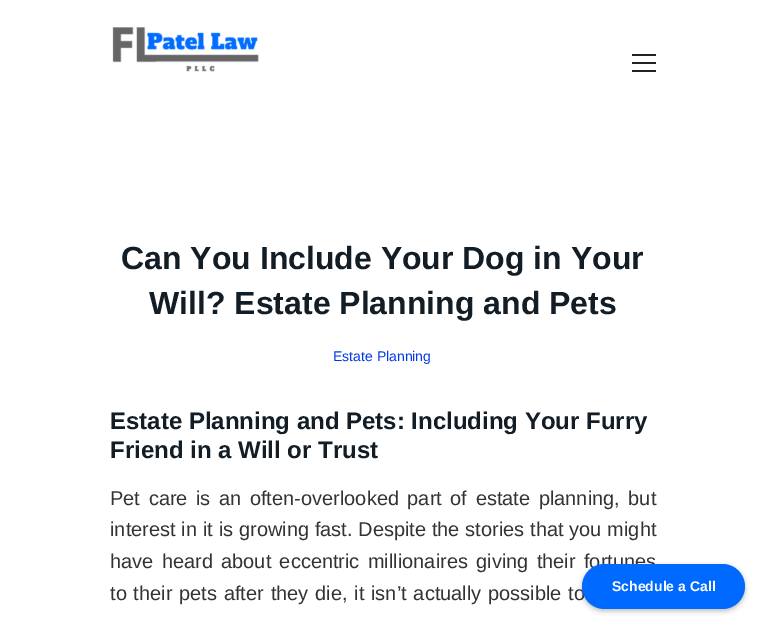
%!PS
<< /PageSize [765 624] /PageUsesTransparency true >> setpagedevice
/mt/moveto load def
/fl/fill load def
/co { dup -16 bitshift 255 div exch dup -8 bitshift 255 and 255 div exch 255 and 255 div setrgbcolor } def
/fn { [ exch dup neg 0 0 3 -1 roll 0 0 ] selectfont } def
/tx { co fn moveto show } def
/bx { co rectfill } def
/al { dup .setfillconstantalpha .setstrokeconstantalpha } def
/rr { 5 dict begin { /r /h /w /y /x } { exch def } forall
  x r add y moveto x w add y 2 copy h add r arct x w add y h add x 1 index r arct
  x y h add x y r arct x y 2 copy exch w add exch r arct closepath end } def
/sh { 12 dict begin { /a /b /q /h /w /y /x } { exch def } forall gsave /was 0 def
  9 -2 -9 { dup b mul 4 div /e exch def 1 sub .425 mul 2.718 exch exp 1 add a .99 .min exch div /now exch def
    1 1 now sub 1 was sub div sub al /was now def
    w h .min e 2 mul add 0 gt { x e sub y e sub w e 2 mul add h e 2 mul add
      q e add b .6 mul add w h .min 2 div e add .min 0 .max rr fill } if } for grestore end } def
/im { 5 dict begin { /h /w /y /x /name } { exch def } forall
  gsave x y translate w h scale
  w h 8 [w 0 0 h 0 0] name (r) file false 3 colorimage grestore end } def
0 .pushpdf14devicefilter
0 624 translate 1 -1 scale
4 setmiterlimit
0 0 765 624 16#FFFFFF bx
(media/1.raw) 112 27 147 45 im
632 62 24 2 16#222222 bx
632 54 24 2 16#222222 bx
632 70 24 2 16#222222 bx
16#000000 co
582 566 163 45 22.5 2.5 .25 sh
(Can You Include Your Dog in Your) 121 269 /LiberationSans-Bold 32 16#131D26 tx
(Will? Estate Planning and Pets) 149 314 /LiberationSans-Bold 32 16#131D26 tx
(Estate Planning) 333 361 /LiberationSans-Regular 14 16#0038E3 tx
(Estate Planning and Pets: Including Your Furry) 110 429 /LiberationSans-Bold 24 16#131D26 tx
(Friend in a Will or Trust) 110 458 /LiberationSans-Bold 24 16#131D26 tx
/LiberationSans-Regular 20 fn
16#333333 co
110 505 mt 3 0 32 (Pet care is an often-overlooked part of estate planning, but) widthshow
110 536 mt .25 0 32 (interest in it is growing fast. Despite the stories that you might) widthshow
110 568 mt 2.75 0 32 (have heard about eccentric millionaires giving their fortunes) widthshow
110 600 mt 1.25 0 32 (to their pets after they die, it isn’t actually possible to) widthshow
16#0069FF co
582 564 163 45 22.5 rr fl
(Schedule a Call) 612 591 /LiberationSans-Bold 14 16#FFFFFF tx
.poppdf14devicefilter showpage
